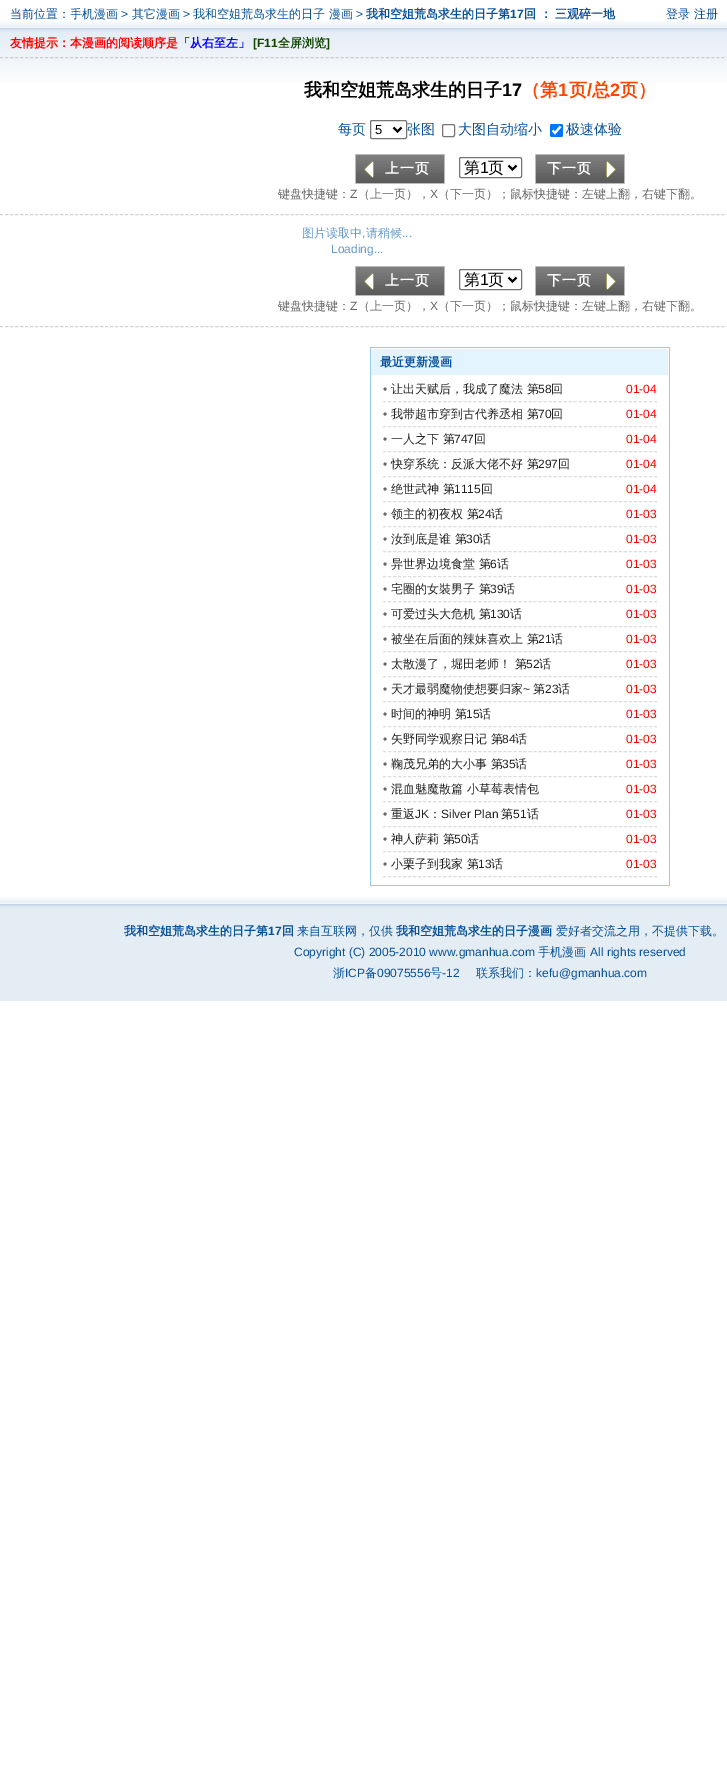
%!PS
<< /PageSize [727 1769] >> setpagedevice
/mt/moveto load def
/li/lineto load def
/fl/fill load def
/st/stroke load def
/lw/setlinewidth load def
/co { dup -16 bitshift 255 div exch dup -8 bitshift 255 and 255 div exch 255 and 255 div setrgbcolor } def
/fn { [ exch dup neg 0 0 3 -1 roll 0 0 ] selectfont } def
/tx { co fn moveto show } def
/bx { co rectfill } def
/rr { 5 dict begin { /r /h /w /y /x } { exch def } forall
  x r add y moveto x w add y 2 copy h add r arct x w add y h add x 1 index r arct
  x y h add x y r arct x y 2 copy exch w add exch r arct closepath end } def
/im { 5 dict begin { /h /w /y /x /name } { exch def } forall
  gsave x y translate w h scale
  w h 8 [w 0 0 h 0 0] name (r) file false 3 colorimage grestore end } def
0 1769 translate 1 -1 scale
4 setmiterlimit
0 0 727 1769 16#FFFFFF bx
(media/1.raw) 0 21 727 61 im
16#CCCCCC co
[3 2.01] 0 setdash
0 57.5 mt 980 57.5 li st
16#767676 co
[] 0 setdash
370.5 120.5 36 18 1.5 rr st
16#000000 co
2 lw
393.5 127.5 mt 397.5 131.5 li 401.5 127.5 li st
16#767676 co
1 lw
442.5 124.5 12 12 1.5 rr st
16#0075FF co
550 124 13 13 2 rr fl
16#FFFFFF co
2.1 lw
552.5 130.5 mt 555 133 li 560.5 126.5 li st
16#D2D2D2 co
1 lw
[3 2.01] 0 setdash
0 214.5 mt 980 214.5 li st
(media/2.raw) 355 154 90 30 im
16#767676 co
[] 0 setdash
459.5 157.5 62 20 1.5 rr st
16#000000 co
2 lw
508.5 165.5 mt 512.5 169.5 li 516.5 165.5 li st
(media/3.raw) 535 154 90 30 im
16#D2D2D2 co
1 lw
[3 2.01] 0 setdash
0 326.5 mt 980 326.5 li st
(media/2.raw) 355 266 90 30 im
16#767676 co
[] 0 setdash
459.5 269.5 62 20 1.5 rr st
16#000000 co
2 lw
508.5 277.5 mt 512.5 281.5 li 516.5 277.5 li st
(media/3.raw) 535 266 90 30 im
370 347 300 1 16#94CBF4 bx
669 347 1 539 16#94CBF4 bx
370 347 1 30 16#94CBF4 bx
372 349 296 26 16#E4F4FF bx
370 885 300 1 16#94CBF4 bx
370 377 1 509 16#94CBF4 bx
16#DDDDDD co
1 lw
[3 2.02] 0 setdash
383 401.5 mt 657 401.5 li st
383 426.5 mt 657 426.5 li st
383 451.5 mt 657 451.5 li st
383 476.5 mt 657 476.5 li st
383 501.5 mt 657 501.5 li st
383 526.5 mt 657 526.5 li st
383 551.5 mt 657 551.5 li st
383 576.5 mt 657 576.5 li st
383 601.5 mt 657 601.5 li st
383 626.5 mt 657 626.5 li st
383 651.5 mt 657 651.5 li st
383 676.5 mt 657 676.5 li st
383 701.5 mt 657 701.5 li st
383 726.5 mt 657 726.5 li st
383 751.5 mt 657 751.5 li st
383 776.5 mt 657 776.5 li st
383 801.5 mt 657 801.5 li st
383 826.5 mt 657 826.5 li st
383 851.5 mt 657 851.5 li st
383 876.5 mt 657 876.5 li st
(media/4.raw) 0 897 727 104 im
(当前位置：手机漫画) 10 18 /WenQuanYiZenHei-Medium 12 16#07519A tx
(>) 121 18 /LiberationSans-Regular 12 16#07519A tx
(其它漫画) 132 18 /WenQuanYiZenHei-Medium 12 16#07519A tx
(>) 183 18 /LiberationSans-Regular 12 16#07519A tx
(我和空姐荒岛求生的日子 漫画) 193 18 /WenQuanYiZenHei-Medium 12 16#07519A tx
(>) 356 18 /LiberationSans-Regular 12 16#07519A tx
(我和空姐荒岛求生的日子第) 366 18 /WenQuanYiZenHei-Bold 12 16#07519A tx
(17) 510 18 /LiberationSans-Bold 12 16#07519A tx
(回 ： 三观碎一地) 524 18 /WenQuanYiZenHei-Bold 12 16#07519A tx
(登录 注册) 666 18 /WenQuanYiZenHei-Medium 12 16#07519A tx
(友情提示：本漫画的阅读顺序是) 10 47 /WenQuanYiZenHei-Bold 12 16#FF0000 tx
(「从右至左」) 178 47 /WenQuanYiZenHei-Bold 12 16#0000FF tx
([F11) 253 47 /LiberationSans-Bold 12 16#114400 tx
(全屏浏览) 278 47 /WenQuanYiZenHei-Bold 12 16#114400 tx
(]) 326 47 /LiberationSans-Bold 12 16#114400 tx
(我和空姐荒岛求生的日子) 304 96 /WenQuanYiZenHei-Bold 18 16#000000 tx
(17) 502 96 /LiberationSans-Bold 18 16#000000 tx
(（第) 522 96 /WenQuanYiZenHei-Bold 18 16#FF4400 tx
(1) 558 96 /LiberationSans-Bold 18 16#FF4400 tx
(页) 569 96 /WenQuanYiZenHei-Bold 18 16#FF4400 tx
(/) 587 96 /LiberationSans-Bold 18 16#FF4400 tx
(总) 592 96 /WenQuanYiZenHei-Bold 18 16#FF4400 tx
(2) 610 96 /LiberationSans-Bold 18 16#FF4400 tx
(页）) 620 96 /WenQuanYiZenHei-Bold 18 16#FF4400 tx
(每页) 338 134 /WenQuanYiZenHei-Medium 14 16#07519A tx
(5) 375 134 /LiberationSans-Regular 13 16#000000 tx
(张图) 407 134 /WenQuanYiZenHei-Medium 14 16#07519A tx
(大图自动缩小) 458 134 /WenQuanYiZenHei-Medium 14 16#07519A tx
(极速体验) 566 134 /WenQuanYiZenHei-Medium 14 16#07519A tx
/WenQuanYiZenHei-Bold 14 fn
16#FFFFFF co
385 173 mt 1 0 (上一页) ashow
(第) 464 173 /WenQuanYiZenHei-Medium 16 16#000000 tx
(1) 480 173 /LiberationSans-Regular 16 16#000000 tx
(页) 488 173 /WenQuanYiZenHei-Medium 16 16#000000 tx
/WenQuanYiZenHei-Bold 14 fn
16#FFFFFF co
547 173 mt 1 0 (下一页) ashow
(键盘快捷键：) 278 198 /WenQuanYiZenHei-Medium 12 16#666666 tx
(Z) 350 198 /LiberationSans-Regular 12 16#666666 tx
(（上一页），) 358 198 /WenQuanYiZenHei-Medium 12 16#666666 tx
(X) 430 198 /LiberationSans-Regular 12 16#666666 tx
(（下一页）；鼠标快捷键：左键上翻，右键下翻。) 438 198 /WenQuanYiZenHei-Medium 12 16#666666 tx
(图片读取中 请稍候) 302 237 /WenQuanYiZenHei-Medium 12 16#6699CC tx
(,) 362 237 /LiberationSans-Regular 12 16#6699CC tx
(...) 402 237 /LiberationSans-Regular 12 16#6699CC tx
(Loading...) 331 253 /LiberationSans-Regular 12 16#6699CC tx
/WenQuanYiZenHei-Bold 14 fn
16#FFFFFF co
385 285 mt 1 0 (上一页) ashow
(第) 464 285 /WenQuanYiZenHei-Medium 16 16#000000 tx
(1) 480 285 /LiberationSans-Regular 16 16#000000 tx
(页) 488 285 /WenQuanYiZenHei-Medium 16 16#000000 tx
/WenQuanYiZenHei-Bold 14 fn
16#FFFFFF co
547 285 mt 1 0 (下一页) ashow
(键盘快捷键：) 278 310 /WenQuanYiZenHei-Medium 12 16#666666 tx
(Z) 350 310 /LiberationSans-Regular 12 16#666666 tx
(（上一页），) 358 310 /WenQuanYiZenHei-Medium 12 16#666666 tx
(X) 430 310 /LiberationSans-Regular 12 16#666666 tx
(（下一页）；鼠标快捷键：左键上翻，右键下翻。) 438 310 /WenQuanYiZenHei-Medium 12 16#666666 tx
(最近更新漫画) 380 366 /WenQuanYiZenHei-Bold 12 16#07519A tx
(•) 383 393 /LiberationSans-Regular 12 16#666666 tx
(让出天赋后，我成了魔法 第) 391 393 /WenQuanYiZenHei-Medium 12 16#222222 tx
(58) 538 393 /LiberationSans-Regular 12 16#222222 tx
(回) 551 393 /WenQuanYiZenHei-Medium 12 16#222222 tx
(01-04) 626 393 /LiberationSans-Regular 12 16#FF0000 tx
(•) 383 418 /LiberationSans-Regular 12 16#666666 tx
(我带超市穿到古代养丞相 第) 391 418 /WenQuanYiZenHei-Medium 12 16#222222 tx
(70) 538 418 /LiberationSans-Regular 12 16#222222 tx
(回) 551 418 /WenQuanYiZenHei-Medium 12 16#222222 tx
(01-04) 626 418 /LiberationSans-Regular 12 16#FF0000 tx
(•) 383 443 /LiberationSans-Regular 12 16#666666 tx
(一人之下 第) 391 443 /WenQuanYiZenHei-Medium 12 16#222222 tx
(747) 454 443 /LiberationSans-Regular 12 16#222222 tx
(回) 474 443 /WenQuanYiZenHei-Medium 12 16#222222 tx
(01-04) 626 443 /LiberationSans-Regular 12 16#FF0000 tx
(•) 383 468 /LiberationSans-Regular 12 16#666666 tx
(快穿系统：反派大佬不好 第) 391 468 /WenQuanYiZenHei-Medium 12 16#222222 tx
(297) 538 468 /LiberationSans-Regular 12 16#222222 tx
(回) 558 468 /WenQuanYiZenHei-Medium 12 16#222222 tx
(01-04) 626 468 /LiberationSans-Regular 12 16#FF0000 tx
(•) 383 493 /LiberationSans-Regular 12 16#666666 tx
(绝世武神 第) 391 493 /WenQuanYiZenHei-Medium 12 16#222222 tx
(1115) 454 493 /LiberationSans-Regular 12 16#222222 tx
(回) 481 493 /WenQuanYiZenHei-Medium 12 16#222222 tx
(01-04) 626 493 /LiberationSans-Regular 12 16#FF0000 tx
(•) 383 518 /LiberationSans-Regular 12 16#666666 tx
(领主的初夜权 第) 391 518 /WenQuanYiZenHei-Medium 12 16#222222 tx
(24) 478 518 /LiberationSans-Regular 12 16#222222 tx
(话) 491 518 /WenQuanYiZenHei-Medium 12 16#222222 tx
(01-03) 626 518 /LiberationSans-Regular 12 16#FF0000 tx
(•) 383 543 /LiberationSans-Regular 12 16#666666 tx
(汝到底是谁 第) 391 543 /WenQuanYiZenHei-Medium 12 16#222222 tx
(30) 466 543 /LiberationSans-Regular 12 16#222222 tx
(话) 479 543 /WenQuanYiZenHei-Medium 12 16#222222 tx
(01-03) 626 543 /LiberationSans-Regular 12 16#FF0000 tx
(•) 383 568 /LiberationSans-Regular 12 16#666666 tx
(异世界边境食堂 第) 391 568 /WenQuanYiZenHei-Medium 12 16#222222 tx
(6) 490 568 /LiberationSans-Regular 12 16#222222 tx
(话) 497 568 /WenQuanYiZenHei-Medium 12 16#222222 tx
(01-03) 626 568 /LiberationSans-Regular 12 16#FF0000 tx
(•) 383 593 /LiberationSans-Regular 12 16#666666 tx
(宅圈的女裝男子 第) 391 593 /WenQuanYiZenHei-Medium 12 16#222222 tx
(39) 490 593 /LiberationSans-Regular 12 16#222222 tx
(话) 503 593 /WenQuanYiZenHei-Medium 12 16#222222 tx
(01-03) 626 593 /LiberationSans-Regular 12 16#FF0000 tx
(•) 383 618 /LiberationSans-Regular 12 16#666666 tx
(可爱过头大危机 第) 391 618 /WenQuanYiZenHei-Medium 12 16#222222 tx
(130) 490 618 /LiberationSans-Regular 12 16#222222 tx
(话) 510 618 /WenQuanYiZenHei-Medium 12 16#222222 tx
(01-03) 626 618 /LiberationSans-Regular 12 16#FF0000 tx
(•) 383 643 /LiberationSans-Regular 12 16#666666 tx
(被坐在后面的辣妹喜欢上 第) 391 643 /WenQuanYiZenHei-Medium 12 16#222222 tx
(21) 538 643 /LiberationSans-Regular 12 16#222222 tx
(话) 551 643 /WenQuanYiZenHei-Medium 12 16#222222 tx
(01-03) 626 643 /LiberationSans-Regular 12 16#FF0000 tx
(•) 383 668 /LiberationSans-Regular 12 16#666666 tx
(太散漫了，堀田老师！ 第) 391 668 /WenQuanYiZenHei-Medium 12 16#222222 tx
(52) 526 668 /LiberationSans-Regular 12 16#222222 tx
(话) 539 668 /WenQuanYiZenHei-Medium 12 16#222222 tx
(01-03) 626 668 /LiberationSans-Regular 12 16#FF0000 tx
(•) 383 693 /LiberationSans-Regular 12 16#666666 tx
(天才最弱魔物使想要归家) 391 693 /WenQuanYiZenHei-Medium 12 16#222222 tx
(~) 523 693 /LiberationSans-Regular 12 16#222222 tx
(第) 533 693 /WenQuanYiZenHei-Medium 12 16#222222 tx
(23) 545 693 /LiberationSans-Regular 12 16#222222 tx
(话) 558 693 /WenQuanYiZenHei-Medium 12 16#222222 tx
(01-03) 626 693 /LiberationSans-Regular 12 16#FF0000 tx
(•) 383 718 /LiberationSans-Regular 12 16#666666 tx
(时间的神明 第) 391 718 /WenQuanYiZenHei-Medium 12 16#222222 tx
(15) 466 718 /LiberationSans-Regular 12 16#222222 tx
(话) 479 718 /WenQuanYiZenHei-Medium 12 16#222222 tx
(01-03) 626 718 /LiberationSans-Regular 12 16#FF0000 tx
(•) 383 743 /LiberationSans-Regular 12 16#666666 tx
(矢野同学观察日记 第) 391 743 /WenQuanYiZenHei-Medium 12 16#222222 tx
(84) 502 743 /LiberationSans-Regular 12 16#222222 tx
(话) 515 743 /WenQuanYiZenHei-Medium 12 16#222222 tx
(01-03) 626 743 /LiberationSans-Regular 12 16#FF0000 tx
(•) 383 768 /LiberationSans-Regular 12 16#666666 tx
(鞠茂兄弟的大小事 第) 391 768 /WenQuanYiZenHei-Medium 12 16#222222 tx
(35) 502 768 /LiberationSans-Regular 12 16#222222 tx
(话) 515 768 /WenQuanYiZenHei-Medium 12 16#222222 tx
(01-03) 626 768 /LiberationSans-Regular 12 16#FF0000 tx
(•) 383 793 /LiberationSans-Regular 12 16#666666 tx
(混血魅魔散篇 小草莓表情包) 391 793 /WenQuanYiZenHei-Medium 12 16#222222 tx
(01-03) 626 793 /LiberationSans-Regular 12 16#FF0000 tx
(•) 383 818 /LiberationSans-Regular 12 16#666666 tx
(重返) 391 818 /WenQuanYiZenHei-Medium 12 16#222222 tx
(JK) 415 818 /LiberationSans-Regular 12 16#222222 tx
(：) 429 818 /WenQuanYiZenHei-Medium 12 16#222222 tx
(Silver Plan) 441 818 /LiberationSans-Regular 12 16#222222 tx
(第) 501 818 /WenQuanYiZenHei-Medium 12 16#222222 tx
(51) 513 818 /LiberationSans-Regular 12 16#222222 tx
(话) 527 818 /WenQuanYiZenHei-Medium 12 16#222222 tx
(01-03) 626 818 /LiberationSans-Regular 12 16#FF0000 tx
(•) 383 843 /LiberationSans-Regular 12 16#666666 tx
(神人萨莉 第) 391 843 /WenQuanYiZenHei-Medium 12 16#222222 tx
(50) 454 843 /LiberationSans-Regular 12 16#222222 tx
(话) 467 843 /WenQuanYiZenHei-Medium 12 16#222222 tx
(01-03) 626 843 /LiberationSans-Regular 12 16#FF0000 tx
(•) 383 868 /LiberationSans-Regular 12 16#666666 tx
(小栗子到我家 第) 391 868 /WenQuanYiZenHei-Medium 12 16#222222 tx
(13) 478 868 /LiberationSans-Regular 12 16#222222 tx
(话) 491 868 /WenQuanYiZenHei-Medium 12 16#222222 tx
(01-03) 626 868 /LiberationSans-Regular 12 16#FF0000 tx
(我和空姐荒岛求生的日子第) 124 935 /WenQuanYiZenHei-Bold 12 16#07519A tx
(17) 268 935 /LiberationSans-Bold 12 16#07519A tx
(回) 282 935 /WenQuanYiZenHei-Bold 12 16#07519A tx
(来自互联网，仅供) 297 935 /WenQuanYiZenHei-Medium 12 16#07519A tx
(我和空姐荒岛求生的日子漫画) 396 935 /WenQuanYiZenHei-Bold 12 16#07519A tx
(爱好者交流之用，不提供下载。) 556 935 /WenQuanYiZenHei-Medium 12 16#07519A tx
(Copyright \(C\) 2005-2010 www.gmanhua.com) 294 956 /LiberationSans-Regular 12 16#07519A tx
(手机漫画) 538 956 /WenQuanYiZenHei-Medium 12 16#07519A tx
(All rights reserved) 590 956 /LiberationSans-Regular 12 16#07519A tx
(浙) 333 977 /WenQuanYiZenHei-Medium 12 16#07519A tx
(ICP) 345 977 /LiberationSans-Regular 12 16#07519A tx
(备) 365 977 /WenQuanYiZenHei-Medium 12 16#07519A tx
(09075556) 377 977 /LiberationSans-Regular 12 16#07519A tx
(号) 430 977 /WenQuanYiZenHei-Medium 12 16#07519A tx
(-12) 442 977 /LiberationSans-Regular 12 16#07519A tx
(联系我们：) 476 977 /WenQuanYiZenHei-Medium 12 16#07519A tx
(kefu@gmanhua.com) 536 977 /LiberationSans-Regular 12 16#07519A tx
showpage
